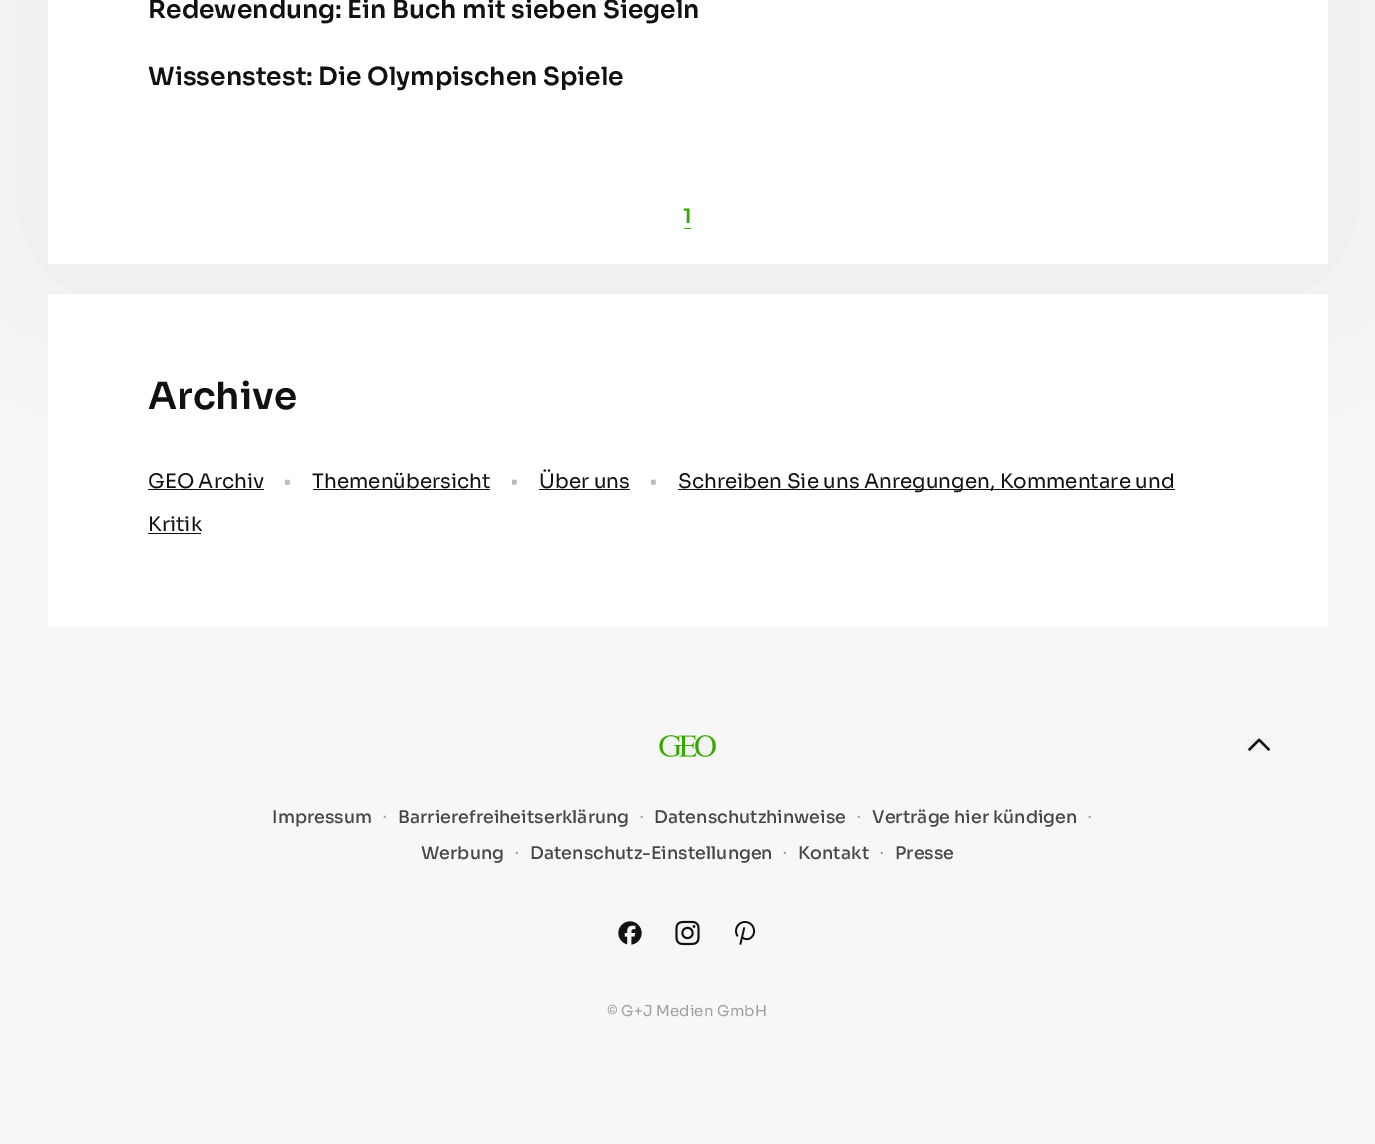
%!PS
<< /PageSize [1375 1144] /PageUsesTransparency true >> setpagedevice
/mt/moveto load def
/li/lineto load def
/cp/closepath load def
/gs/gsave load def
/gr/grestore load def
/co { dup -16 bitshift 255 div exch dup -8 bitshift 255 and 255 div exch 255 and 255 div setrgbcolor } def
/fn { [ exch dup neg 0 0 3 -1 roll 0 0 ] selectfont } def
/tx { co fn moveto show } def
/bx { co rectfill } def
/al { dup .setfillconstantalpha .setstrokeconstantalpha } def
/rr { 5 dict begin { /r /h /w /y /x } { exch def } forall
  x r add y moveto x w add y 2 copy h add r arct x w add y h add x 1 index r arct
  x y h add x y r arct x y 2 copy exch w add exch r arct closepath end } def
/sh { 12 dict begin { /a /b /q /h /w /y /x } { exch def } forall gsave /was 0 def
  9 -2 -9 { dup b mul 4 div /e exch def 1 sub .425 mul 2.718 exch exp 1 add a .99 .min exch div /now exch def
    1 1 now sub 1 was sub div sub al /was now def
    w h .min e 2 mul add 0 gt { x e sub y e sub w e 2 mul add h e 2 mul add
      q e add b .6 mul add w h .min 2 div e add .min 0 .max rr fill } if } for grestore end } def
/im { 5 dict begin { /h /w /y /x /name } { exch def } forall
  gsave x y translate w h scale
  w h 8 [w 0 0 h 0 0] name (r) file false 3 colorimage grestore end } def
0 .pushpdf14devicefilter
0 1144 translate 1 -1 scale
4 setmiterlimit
0 0 1375 1144 16#FFFFFF bx
gs 0 0 mt 1375 0 li 1375 1144 li 0 1144 li cp clip newpath
<< /ShadingType 2 /ColorSpace /DeviceRGB /Coords [687 -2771 688 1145] /Extend [true true] /Function << /FunctionType 3 /Domain [0 1] /Functions [<< /FunctionType 2 /Domain [0 1] /C0 [1 1 1] /C1 [1 1 1] /N 1 >> << /FunctionType 2 /Domain [0 1] /C0 [1 1 1] /C1 [.969 .969 .969] /N 1 >> << /FunctionType 2 /Domain [0 1] /C0 [.969 .969 .969] /C1 [.969 .969 .969] /N 1 >>] /Bounds [.16 .3] /Encode [0 1 0 1 0 1] >> >> shfill gr
16#111111 co
48 -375 1280 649 0 125 .05 sh
48 0 1280 264 16#FFFFFF bx
684 228 7 1 16#35A800 bx
48 294 1280 332 16#FFFFFF bx
148 489 116 1 16#111111 bx
313 489 177 1 16#111111 bx
539 489 91 1 16#111111 bx
678 489 497 1 16#111111 bx
148 533 53 1 16#111111 bx
(media/1.raw) 659 735 57 22 im
(media/2.raw) 1247 738 24 13 im
(media/3.raw) 618 921 24 24 im
(media/4.raw) 675 920 25 26 im
(media/5.raw) 735 920 21 25 im
(Redewendung: Ein Buch mit sieben Siegeln) 148 18 /Sora-SemiBold 25 16#111111 tx
(Wissenstest: Die Olympischen Spiele) 148 85 /Sora-SemiBold 25 16#111111 tx
(1) 683 223 /Sora-SemiBold 20 16#35A800 tx
(Archive) 148 409 /Sora-SemiBold 37.5 16#111111 tx
(GEO Archiv) 148 488 /Sora-Regular 20 16#111111 tx
(•) 283 488 /Sora-Regular 20 16#BBBBBB tx
(Themenübersicht) 312 488 /Sora-Regular 20 16#111111 tx
(•) 510 488 /Sora-Regular 20 16#BBBBBB tx
(Über uns) 539 488 /Sora-Regular 20 16#111111 tx
(•) 649 488 /Sora-Regular 20 16#BBBBBB tx
(Schreiben Sie uns Anregungen, Kommentare und) 678 488 /Sora-Regular 20 16#111111 tx
(Kritik) 148 531 /Sora-Regular 20 16#111111 tx
(Impressum) 272 823 /Sora-Medium 17.5 16#474747 tx
(⋅) 382 823 /DejaVuSans-Regular 17.5 16#A1A0A0 tx
(Barrierefreiheitserklärung) 398 823 /Sora-Medium 17.5 16#474747 tx
(⋅) 639 823 /DejaVuSans-Regular 17.5 16#A1A0A0 tx
(Datenschutzhinweise) 654 823 /Sora-Medium 17.5 16#474747 tx
(⋅) 856 823 /DejaVuSans-Regular 17.5 16#A1A0A0 tx
(Verträge hier kündigen) 872 823 /Sora-Medium 17.5 16#474747 tx
(⋅) 1087 823 /DejaVuSans-Regular 17.5 16#A1A0A0 tx
(Werbung) 421 859 /Sora-Medium 17.5 16#474747 tx
(⋅) 514 859 /DejaVuSans-Regular 17.5 16#A1A0A0 tx
(Datenschutz-Einstellungen) 530 859 /Sora-Medium 17.5 16#474747 tx
(⋅) 782 859 /DejaVuSans-Regular 17.5 16#A1A0A0 tx
(Kontakt) 798 859 /Sora-Medium 17.5 16#474747 tx
(⋅) 879 859 /DejaVuSans-Regular 17.5 16#A1A0A0 tx
(Presse) 895 859 /Sora-Medium 17.5 16#474747 tx
/Sora-Regular 15 fn
16#A1A0A0 co
607 1016 mt .1 0 (© G+J Medien GmbH) ashow
.poppdf14devicefilter showpage
